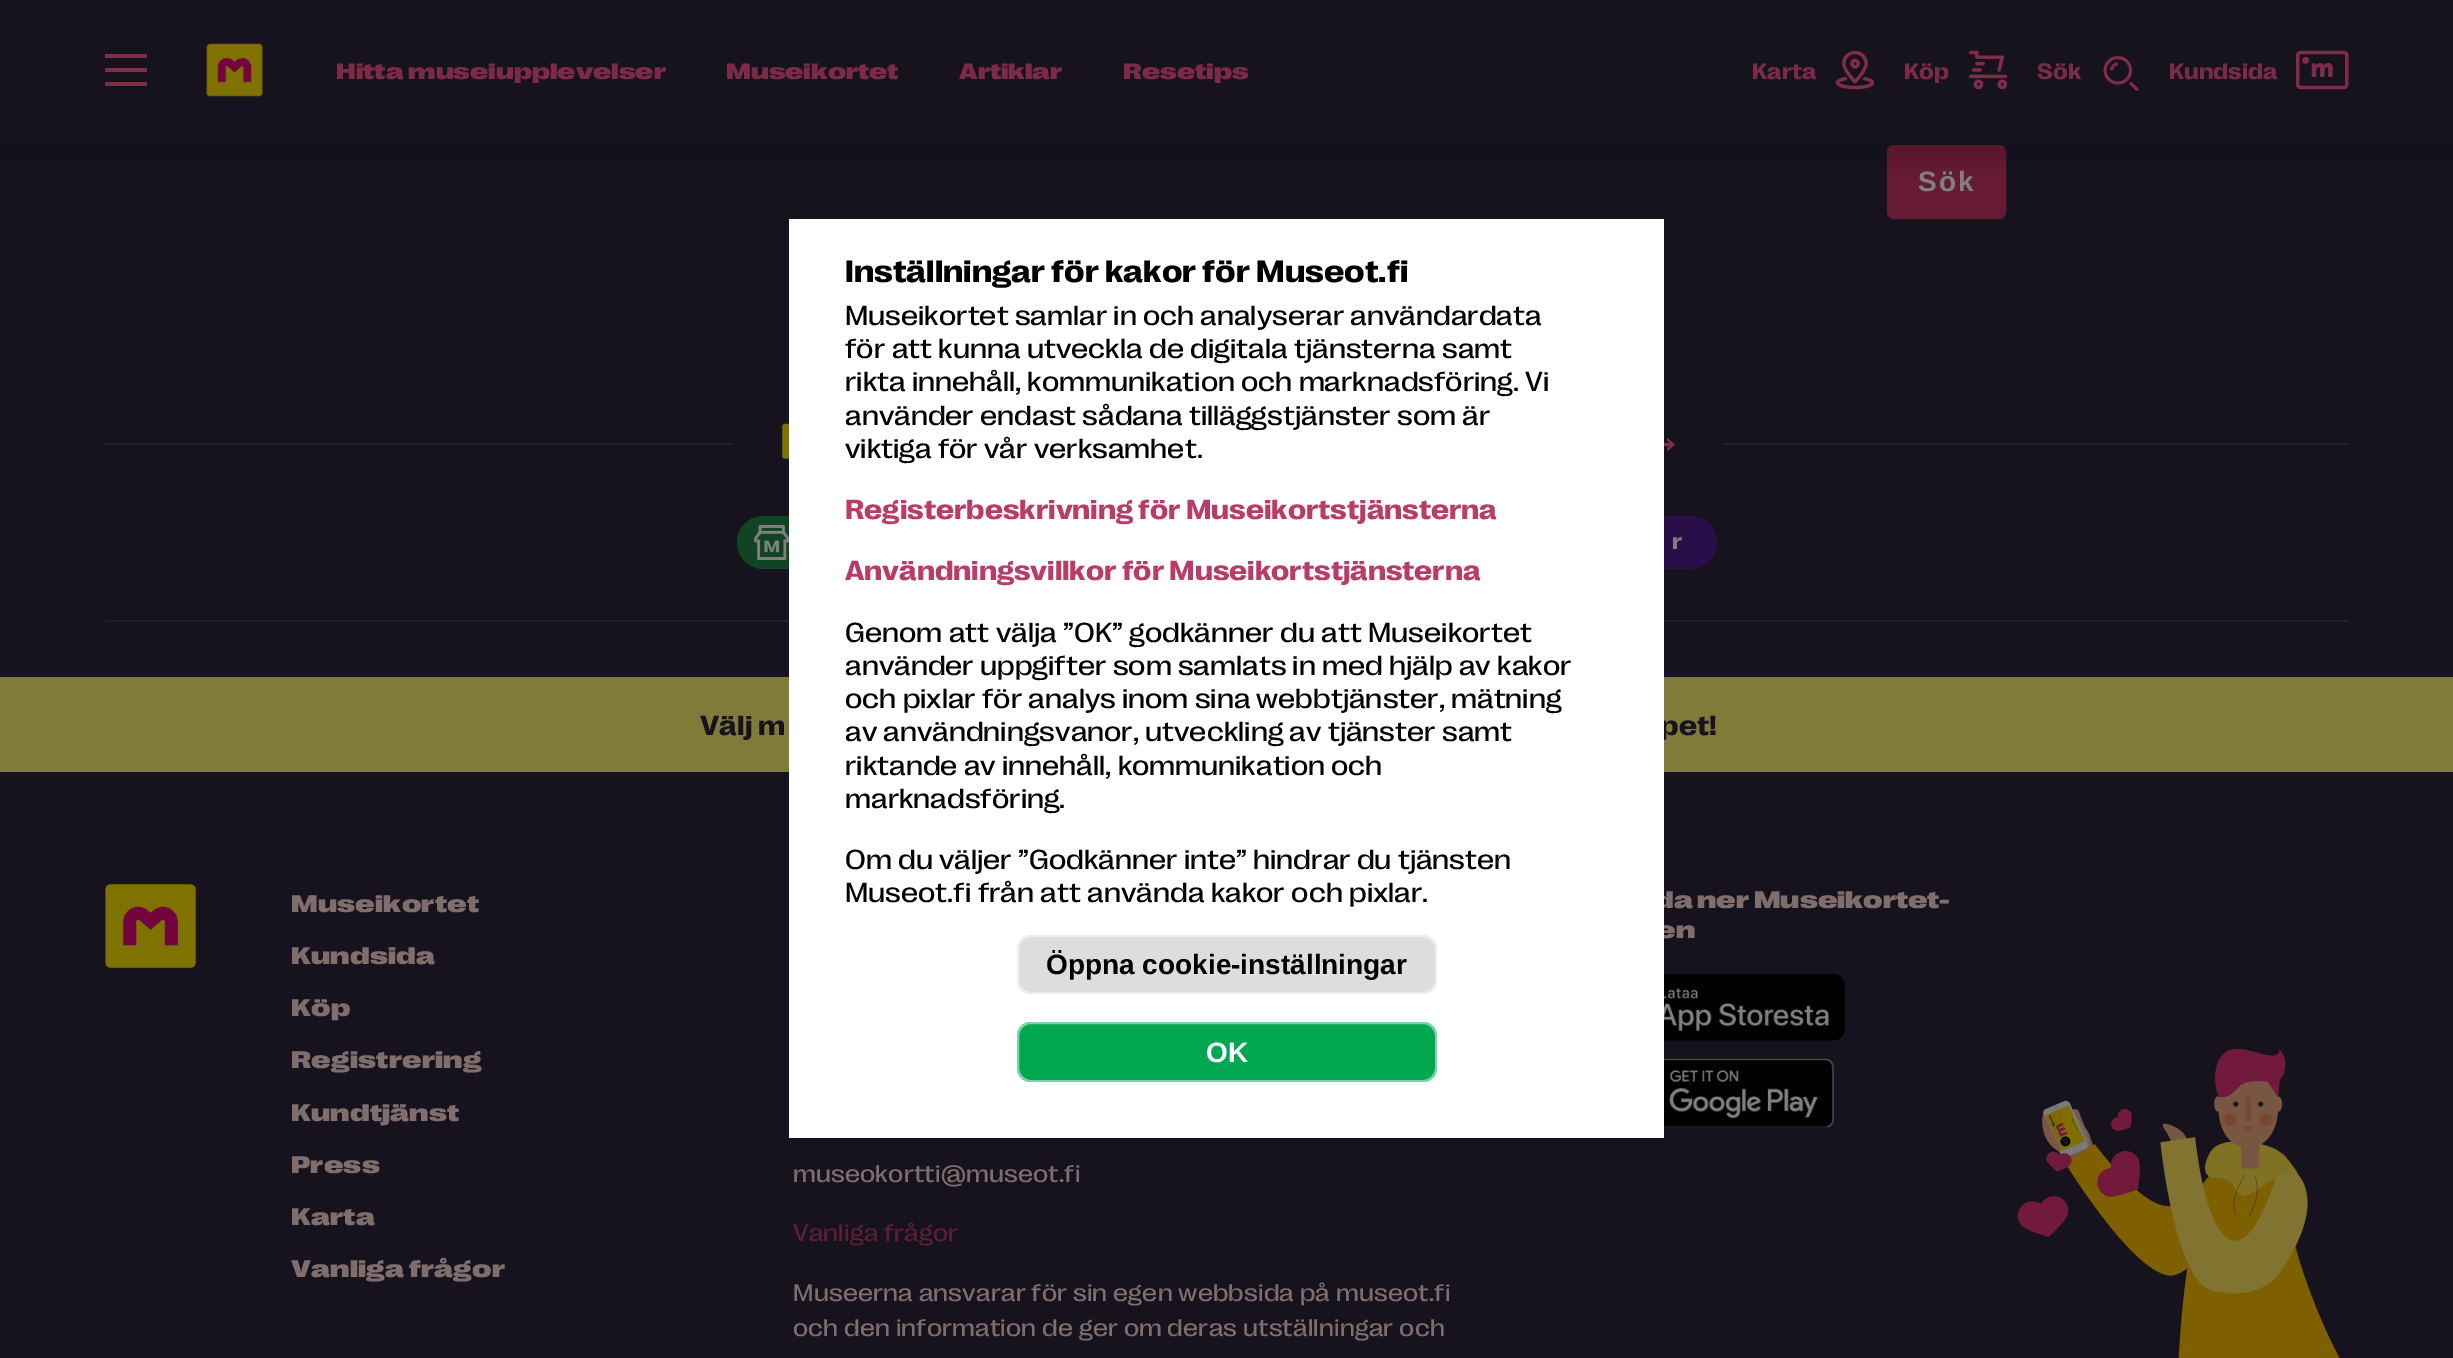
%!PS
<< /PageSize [2453 1358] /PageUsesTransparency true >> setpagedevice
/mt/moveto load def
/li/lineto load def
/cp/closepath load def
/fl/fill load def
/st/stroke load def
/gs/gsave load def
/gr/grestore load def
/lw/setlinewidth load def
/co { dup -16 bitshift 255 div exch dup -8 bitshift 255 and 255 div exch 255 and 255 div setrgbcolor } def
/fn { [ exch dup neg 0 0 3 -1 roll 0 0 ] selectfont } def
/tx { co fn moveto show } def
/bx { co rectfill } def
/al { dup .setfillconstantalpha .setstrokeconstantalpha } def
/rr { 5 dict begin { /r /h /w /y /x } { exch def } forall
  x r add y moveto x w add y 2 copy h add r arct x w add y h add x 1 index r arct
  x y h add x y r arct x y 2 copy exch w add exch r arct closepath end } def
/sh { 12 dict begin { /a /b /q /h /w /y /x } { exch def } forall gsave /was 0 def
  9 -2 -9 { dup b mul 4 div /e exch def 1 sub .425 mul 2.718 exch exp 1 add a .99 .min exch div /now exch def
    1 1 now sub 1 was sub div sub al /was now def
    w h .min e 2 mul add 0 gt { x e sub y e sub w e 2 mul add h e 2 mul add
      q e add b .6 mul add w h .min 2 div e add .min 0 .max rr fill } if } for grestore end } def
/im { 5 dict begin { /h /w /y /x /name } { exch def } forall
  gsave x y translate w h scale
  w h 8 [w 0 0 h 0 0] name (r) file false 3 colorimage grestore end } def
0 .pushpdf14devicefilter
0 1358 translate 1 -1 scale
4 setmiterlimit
0 0 2453 1358 16#16131F bx
16#661A33 co
1889 147 115 70 5 rr gs fl gr
4 lw
st
16#000000 co
-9 4 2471 157 0 9 .15 sh
0 5 2453 135 16#16131F bx
16#802D48 co
105 54 mt 147 54 li 147 58 li 105 58 li cp 105 68 mt 147 68 li 147 72 li 105 72 li cp 105 82 mt 147 82 li 147 86 li 105 86 li cp fl
(media/1.raw) 206 43 57 54 im
(media/2.raw) 1835 50 40 40 im
(media/3.raw) 1968 50 40 40 im
(media/4.raw) 2103 56 36 35 im
(media/5.raw) 2296 50 53 40 im
105 443 2244 2 16#221E2C bx
732 443 990 2 16#16131F bx
(media/6.raw) 782 423 7 36 im
(media/7.raw) 1664 437 11 15 im
105 620 2244 2 16#221E2C bx
16#114422 co
737 516 208 53 26.5 rr fl
(media/8.raw) 754 525 35 35 im
16#2A0E4A co
1496 516 221 53 26.5 rr fl
0 677 2453 95 16#807B39 bx
(media/9.raw) 2017 1049 323 309 im
(media/10.raw) 105 884 91 84 im
(media/11.raw) 1664 974 181 67 im
(media/12.raw) 1664 1058 170 70 im
/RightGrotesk-ExtraBold 22.75 fn
16#7B2B45 co
336 79 mt 1 0 32 (Hitta museiupplevelser) widthshow
(Museikortet) 726 79 /RightGrotesk-ExtraBold 22.75 16#7B2B45 tx
(Artiklar) 959 79 /RightGrotesk-ExtraBold 22.75 16#7B2B45 tx
(Resetips) 1123 79 /RightGrotesk-ExtraBold 22.75 16#7B2B45 tx
(Karta) 1752 79 /RightGrotesk-Bold 22.75 16#7B2B45 tx
(Köp) 1904 79 /RightGrotesk-Bold 22.75 16#7B2B45 tx
(Sök) 2037 79 /RightGrotesk-Bold 22.75 16#7B2B45 tx
(Kundsida) 2169 79 /RightGrotesk-Bold 22.75 16#7B2B45 tx
/LiberationSans-Bold 28 fn
16#808080 co
1918 191 mt 2 0 (Sök) ashow
(r) 1672 549 /RightGrotesk-Bold 22.75 16#808080 tx
/RightGrotesk-Bold 28 fn
16#16131F co
700 735 mt .2 0 (Välj m) ashow
1660 735 mt .2 0 (pet!) ashow
/RightGrotesk-ExtraBold 24.5 fn
16#806E6C co
291 912 mt .2 0 (Museikortet) ashow
291 964 mt .2 0 (Kundsida) ashow
291 1016 mt .2 0 (Köp) ashow
291 1068 mt .2 0 (Registrering) ashow
291 1121 mt .2 0 (Kundtjänst) ashow
291 1173 mt .2 0 (Press) ashow
291 1225 mt .2 0 (Karta) ashow
291 1277 mt .2 0 (Vanliga frågor) ashow
/RightGrotesk-Regular 24.5 fn
793 1182 mt .2 0 (museokortti@museot.fi) ashow
16#5D1E33 co
793 1241 mt .2 0 (Vanliga frågor) ashow
16#806E6C co
793 1301 mt .2 0 (Museerna ansvarar för sin egen webbsida på museot.fi) ashow
793 1336 mt .2 0 (och den information de ger om deras utställningar och) ashow
(da ner Museikortet-) 1654 908 /RightGrotesk-ExtraBold 24.5 16#806E6C tx
(en) 1656 938 /RightGrotesk-ExtraBold 24.5 16#806E6C tx
789 219 875 919 16#FFFFFF bx
16#00A751 co
1017 1022 420 60 14 rr fl
0.5 al
16#FFFFFF co
2 lw
1018 1023 418 58 13 rr st
1 al
(OK) 1206 1062 /LiberationSans-Bold 28 16#FFFFFF tx
16#DDDDDD co
1017 935 420 59 14 rr fl
0.5 al
16#FFFFFF co
1018 936 418 57 13 rr st
1 al
(Öppna cookie-inställningar) 1046 974 /LiberationSans-Bold 28 16#000000 tx
/RightGrotesk-Regular 28 fn
845 902 mt .25 0 32 (Museot.fi från att använda kakor och pixlar.) widthshow
(Om du väljer ”Godkänner inte” hindrar du tjänsten) 845 869 /RightGrotesk-Regular 28 16#000000 tx
(marknadsföring.) 845 808 /RightGrotesk-Regular 28 16#000000 tx
(riktande av innehåll, kommunikation och) 845 775 /RightGrotesk-Regular 28 16#000000 tx
(av användningsvanor, utveckling av tjänster samt) 845 741 /RightGrotesk-Regular 28 16#000000 tx
(och pixlar för analys inom sina webbtjänster, mätning) 845 708 /RightGrotesk-Regular 28 16#000000 tx
(använder uppgifter som samlats in med hjälp av kakor) 845 675 /RightGrotesk-Regular 28 16#000000 tx
845 642 mt .25 0 32 (Genom att välja ”OK” godkänner du att Museikortet) widthshow
(Användningsvillkor för Museikortstjänsterna) 845 580 /RightGrotesk-Bold 28 16#BA3B65 tx
(Registerbeskrivning för Museikortstjänsterna) 845 519 /RightGrotesk-Bold 28 16#BA3B65 tx
(viktiga för vår verksamhet.) 845 458 /RightGrotesk-Regular 28 16#000000 tx
(använder endast sådana tilläggstjänster som är) 845 425 /RightGrotesk-Regular 28 16#000000 tx
(rikta innehåll, kommunikation och marknadsföring. Vi) 845 391 /RightGrotesk-Regular 28 16#000000 tx
845 358 mt .25 0 32 (för att kunna utveckla de digitala tjänsterna samt) widthshow
(Museikortet samlar in och analyserar användardata) 845 325 /RightGrotesk-Regular 28 16#000000 tx
(Inställningar för kakor för Museot.fi) 845 282 /RightGrotesk-Bold 31.6 16#000000 tx
.poppdf14devicefilter showpage
